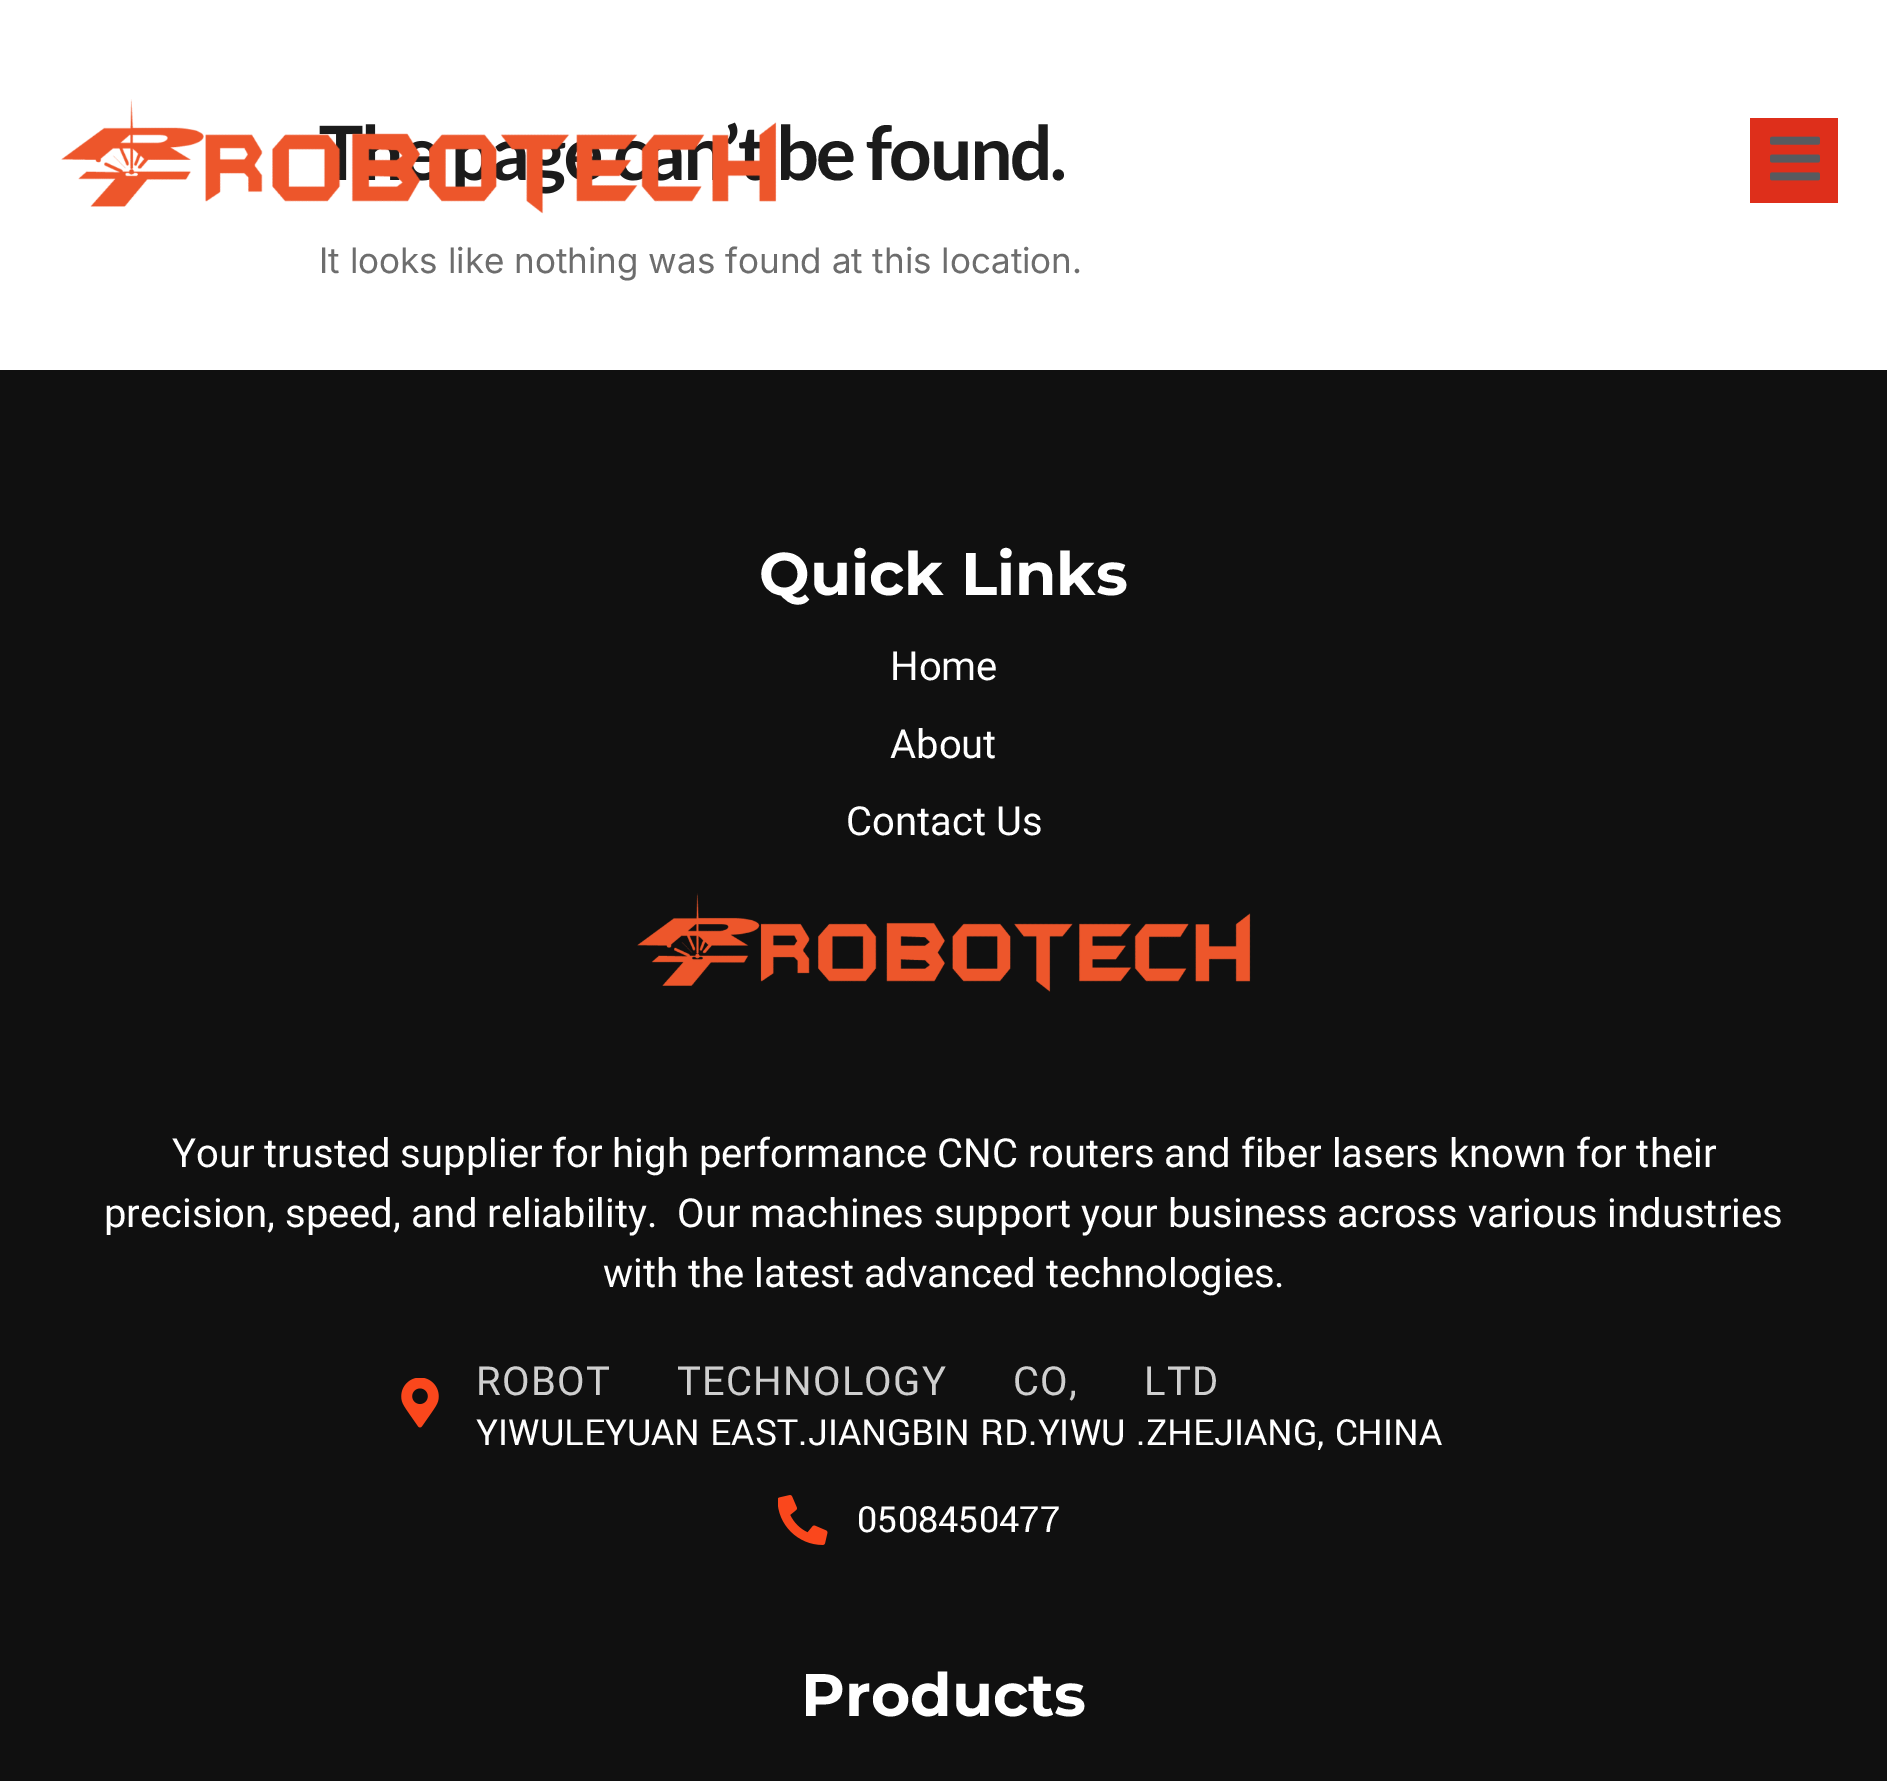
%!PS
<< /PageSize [1887 1781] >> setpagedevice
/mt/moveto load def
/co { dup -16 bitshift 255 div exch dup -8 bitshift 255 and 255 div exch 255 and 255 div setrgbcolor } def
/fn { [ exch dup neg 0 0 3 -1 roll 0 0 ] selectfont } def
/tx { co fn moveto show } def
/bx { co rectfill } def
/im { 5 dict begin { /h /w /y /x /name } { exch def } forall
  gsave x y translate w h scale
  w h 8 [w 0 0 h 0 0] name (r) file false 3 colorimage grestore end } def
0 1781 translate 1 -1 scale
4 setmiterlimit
0 0 1887 1781 16#FFFFFF bx
1750 118 88 85 16#DE2F1B bx
(media/2.raw) 1770 136 50 45 im
0 370 1887 1411 16#101010 bx
(media/3.raw) 637 893 614 99 im
(media/4.raw) 401 1378 38 50 im
(media/5.raw) 778 1495 50 50 im
/Lato-Bold 75 fn
16#1B1B1B co
723 180 mt -2.5 0 (’t be found.) ashow
(media/1.raw) 61 99 716 115 im
(It looks like nothing was found at this location.) 319 273 /Inter-Regular 35 16#6D6D6D tx
(Quick Links) 759 595 /Montserrat-Bold 60 16#FFFFFF tx
(Home) 890 680 /Roboto-Regular 40 16#FFFFFF tx
(About) 890 758 /Roboto-Regular 40 16#FFFFFF tx
(Contact Us) 846 835 /Roboto-Regular 40 16#FFFFFF tx
(Your trusted supplier for high performance CNC routers and fiber lasers known for their) 172 1167 /Roboto-Regular 40 16#FFFFFF tx
(precision, speed, and reliability.  Our machines support your business across various industries) 104 1227 /Roboto-Regular 40 16#FFFFFF tx
(with the latest advanced technologies.) 603 1287 /Roboto-Regular 40 16#FFFFFF tx
16#CFCFCF co
476 1395 mt 55 0 32 1.25 0 (ROBOT TECHNOLOGY CO, LTD) awidthshow
(YIWULEYUAN EAST.JIANGBIN RD.YIWU .ZHEJIANG, CHINA) 476 1445 /Yantramanav-Regular 40 16#FFFFFF tx
(0508450477) 857 1532 /Yantramanav-Regular 40 16#FFFFFF tx
(Products) 801 1716 /Montserrat-Bold 60 16#FFFFFF tx
showpage
